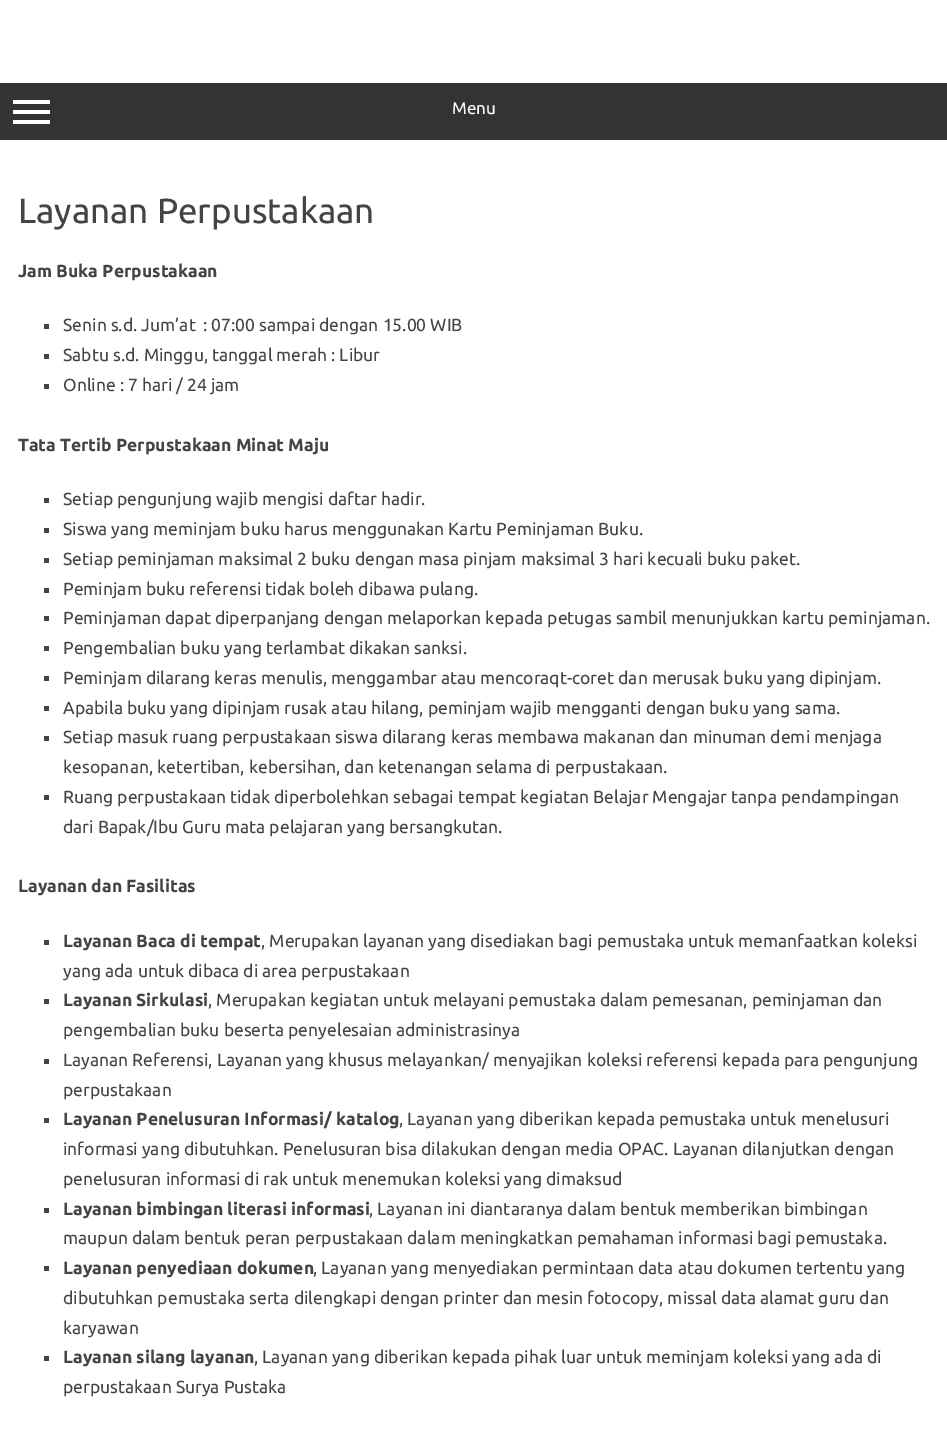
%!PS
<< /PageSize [947 1433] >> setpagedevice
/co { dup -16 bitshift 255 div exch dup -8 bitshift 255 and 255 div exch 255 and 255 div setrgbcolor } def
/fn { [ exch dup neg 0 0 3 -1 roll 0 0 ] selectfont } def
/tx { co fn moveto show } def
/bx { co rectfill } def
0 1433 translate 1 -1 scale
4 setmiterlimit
0 0 947 1433 16#FFFFFF bx
0 83 947 57 16#333333 bx
13 100 37 4 16#FFFFFF bx
13 110 37 4 16#FFFFFF bx
13 120 37 4 16#FFFFFF bx
44 324 5 5 16#444444 bx
44 354 5 5 16#444444 bx
44 384 5 5 16#444444 bx
44 498 5 5 16#444444 bx
44 528 5 5 16#444444 bx
44 558 5 5 16#444444 bx
44 588 5 5 16#444444 bx
44 616 5 5 16#444444 bx
44 646 5 5 16#444444 bx
44 676 5 5 16#444444 bx
44 706 5 5 16#444444 bx
44 736 5 5 16#444444 bx
44 795 5 5 16#444444 bx
44 940 5 5 16#444444 bx
44 999 5 5 16#444444 bx
44 1059 5 5 16#444444 bx
44 1118 5 5 16#444444 bx
44 1208 5 5 16#444444 bx
44 1266 5 5 16#444444 bx
44 1356 5 5 16#444444 bx
(Menu) 452 114 /Ubuntu-Regular 17 16#FFFFFF tx
(Layanan Perpustakaan) 18 223 /Ubuntu-Regular 35 16#444444 tx
(Jam Buka Perpustakaan) 18 277 /Ubuntu-Bold 17.5 16#444444 tx
(Senin s.d. Jum’at) 63 331 /Ubuntu-Regular 17.5 16#444444 tx
(: 07:00 sampai dengan 15.00 WIB) 203 331 /Ubuntu-Regular 17.5 16#444444 tx
(Sabtu s.d. Minggu, tanggal merah : Libur) 63 361 /Ubuntu-Regular 17.5 16#444444 tx
(Online : 7 hari / 24 jam) 63 391 /Ubuntu-Regular 17.5 16#444444 tx
(Tata Tertib Perpustakaan Minat Maju) 18 451 /Ubuntu-Bold 17.5 16#444444 tx
(Setiap pengunjung wajib mengisi daftar hadir.) 63 505 /Ubuntu-Regular 17.5 16#444444 tx
(Siswa yang meminjam buku harus menggunakan Kartu Peminjaman Buku.) 63 535 /Ubuntu-Regular 17.5 16#444444 tx
(Setiap peminjaman maksimal 2 buku dengan masa pinjam maksimal 3 hari kecuali buku paket.) 63 565 /Ubuntu-Regular 17.5 16#444444 tx
(Peminjam buku referensi tidak boleh dibawa pulang.) 63 595 /Ubuntu-Regular 17.5 16#444444 tx
(Peminjaman dapat diperpanjang dengan melaporkan kepada petugas sambil menunjukkan kartu peminjaman.) 63 624 /Ubuntu-Regular 17.5 16#444444 tx
(Pengembalian buku yang terlambat dikakan sanksi.) 63 654 /Ubuntu-Regular 17.5 16#444444 tx
(Peminjam dilarang keras menulis, menggambar atau mencoraqt-coret dan merusak buku yang dipinjam.) 63 684 /Ubuntu-Regular 17.5 16#444444 tx
(Apabila buku yang dipinjam rusak atau hilang, peminjam wajib mengganti dengan buku yang sama.) 63 714 /Ubuntu-Regular 17.5 16#444444 tx
(Setiap masuk ruang perpustakaan siswa dilarang keras membawa makanan dan minuman demi menjaga) 63 743 /Ubuntu-Regular 17.5 16#444444 tx
(kesopanan, ketertiban, kebersihan, dan ketenangan selama di perpustakaan.) 63 773 /Ubuntu-Regular 17.5 16#444444 tx
(Ruang perpustakaan tidak diperbolehkan sebagai tempat kegiatan Belajar Mengajar tanpa pendampingan) 63 803 /Ubuntu-Regular 17.5 16#444444 tx
(dari Bapak/Ibu Guru mata pelajaran yang bersangkutan.) 63 833 /Ubuntu-Regular 17.5 16#444444 tx
(Layanan dan Fasilitas) 18 892 /Ubuntu-Bold 17.5 16#444444 tx
(Layanan Baca di tempat) 63 947 /Ubuntu-Bold 17.5 16#444444 tx
(, Merupakan layanan yang disediakan bagi pemustaka untuk memanfaatkan koleksi) 261 947 /Ubuntu-Regular 17.5 16#444444 tx
(yang ada untuk dibaca di area perpustakaan) 63 977 /Ubuntu-Regular 17.5 16#444444 tx
(Layanan Sirkulasi) 63 1006 /Ubuntu-Bold 17.5 16#444444 tx
(, Merupakan kegiatan untuk melayani pemustaka dalam pemesanan, peminjaman dan) 208 1006 /Ubuntu-Regular 17.5 16#444444 tx
(pengembalian buku beserta penyelesaian administrasinya) 63 1036 /Ubuntu-Regular 17.5 16#444444 tx
(Layanan Referensi, Layanan yang khusus melayankan/ menyajikan koleksi referensi kepada para pengunjung) 63 1066 /Ubuntu-Regular 17.5 16#444444 tx
(perpustakaan) 63 1096 /Ubuntu-Regular 17.5 16#444444 tx
(Layanan Penelusuran Informasi/ katalog) 63 1125 /Ubuntu-Bold 17.5 16#444444 tx
(, Layanan yang diberikan kepada pemustaka untuk menelusuri) 399 1125 /Ubuntu-Regular 17.5 16#444444 tx
(informasi yang dibutuhkan. Penelusuran bisa dilakukan dengan media OPAC. Layanan dilanjutkan dengan) 63 1155 /Ubuntu-Regular 17.5 16#444444 tx
(penelusuran informasi di rak untuk menemukan koleksi yang dimaksud) 63 1185 /Ubuntu-Regular 17.5 16#444444 tx
(Layanan bimbingan literasi informasi) 63 1215 /Ubuntu-Bold 17.5 16#444444 tx
(, Layanan ini diantaranya dalam bentuk memberikan bimbingan) 369 1215 /Ubuntu-Regular 17.5 16#444444 tx
(maupun dalam bentuk peran perpustakaan dalam meningkatkan pemahaman informasi bagi pemustaka.) 63 1244 /Ubuntu-Regular 17.5 16#444444 tx
(Layanan penyediaan dokumen) 63 1274 /Ubuntu-Bold 17.5 16#444444 tx
(, Layanan yang menyediakan permintaan data atau dokumen tertentu yang) 313 1274 /Ubuntu-Regular 17.5 16#444444 tx
(dibutuhkan pemustaka serta dilengkapi dengan printer dan mesin fotocopy, missal data alamat guru dan) 63 1304 /Ubuntu-Regular 17.5 16#444444 tx
(karyawan) 63 1334 /Ubuntu-Regular 17.5 16#444444 tx
(Layanan silang layanan) 63 1363 /Ubuntu-Bold 17.5 16#444444 tx
(, Layanan yang diberikan kepada pihak luar untuk meminjam koleksi yang ada di) 254 1363 /Ubuntu-Regular 17.5 16#444444 tx
(perpustakaan Surya Pustaka) 63 1393 /Ubuntu-Regular 17.5 16#444444 tx
showpage
